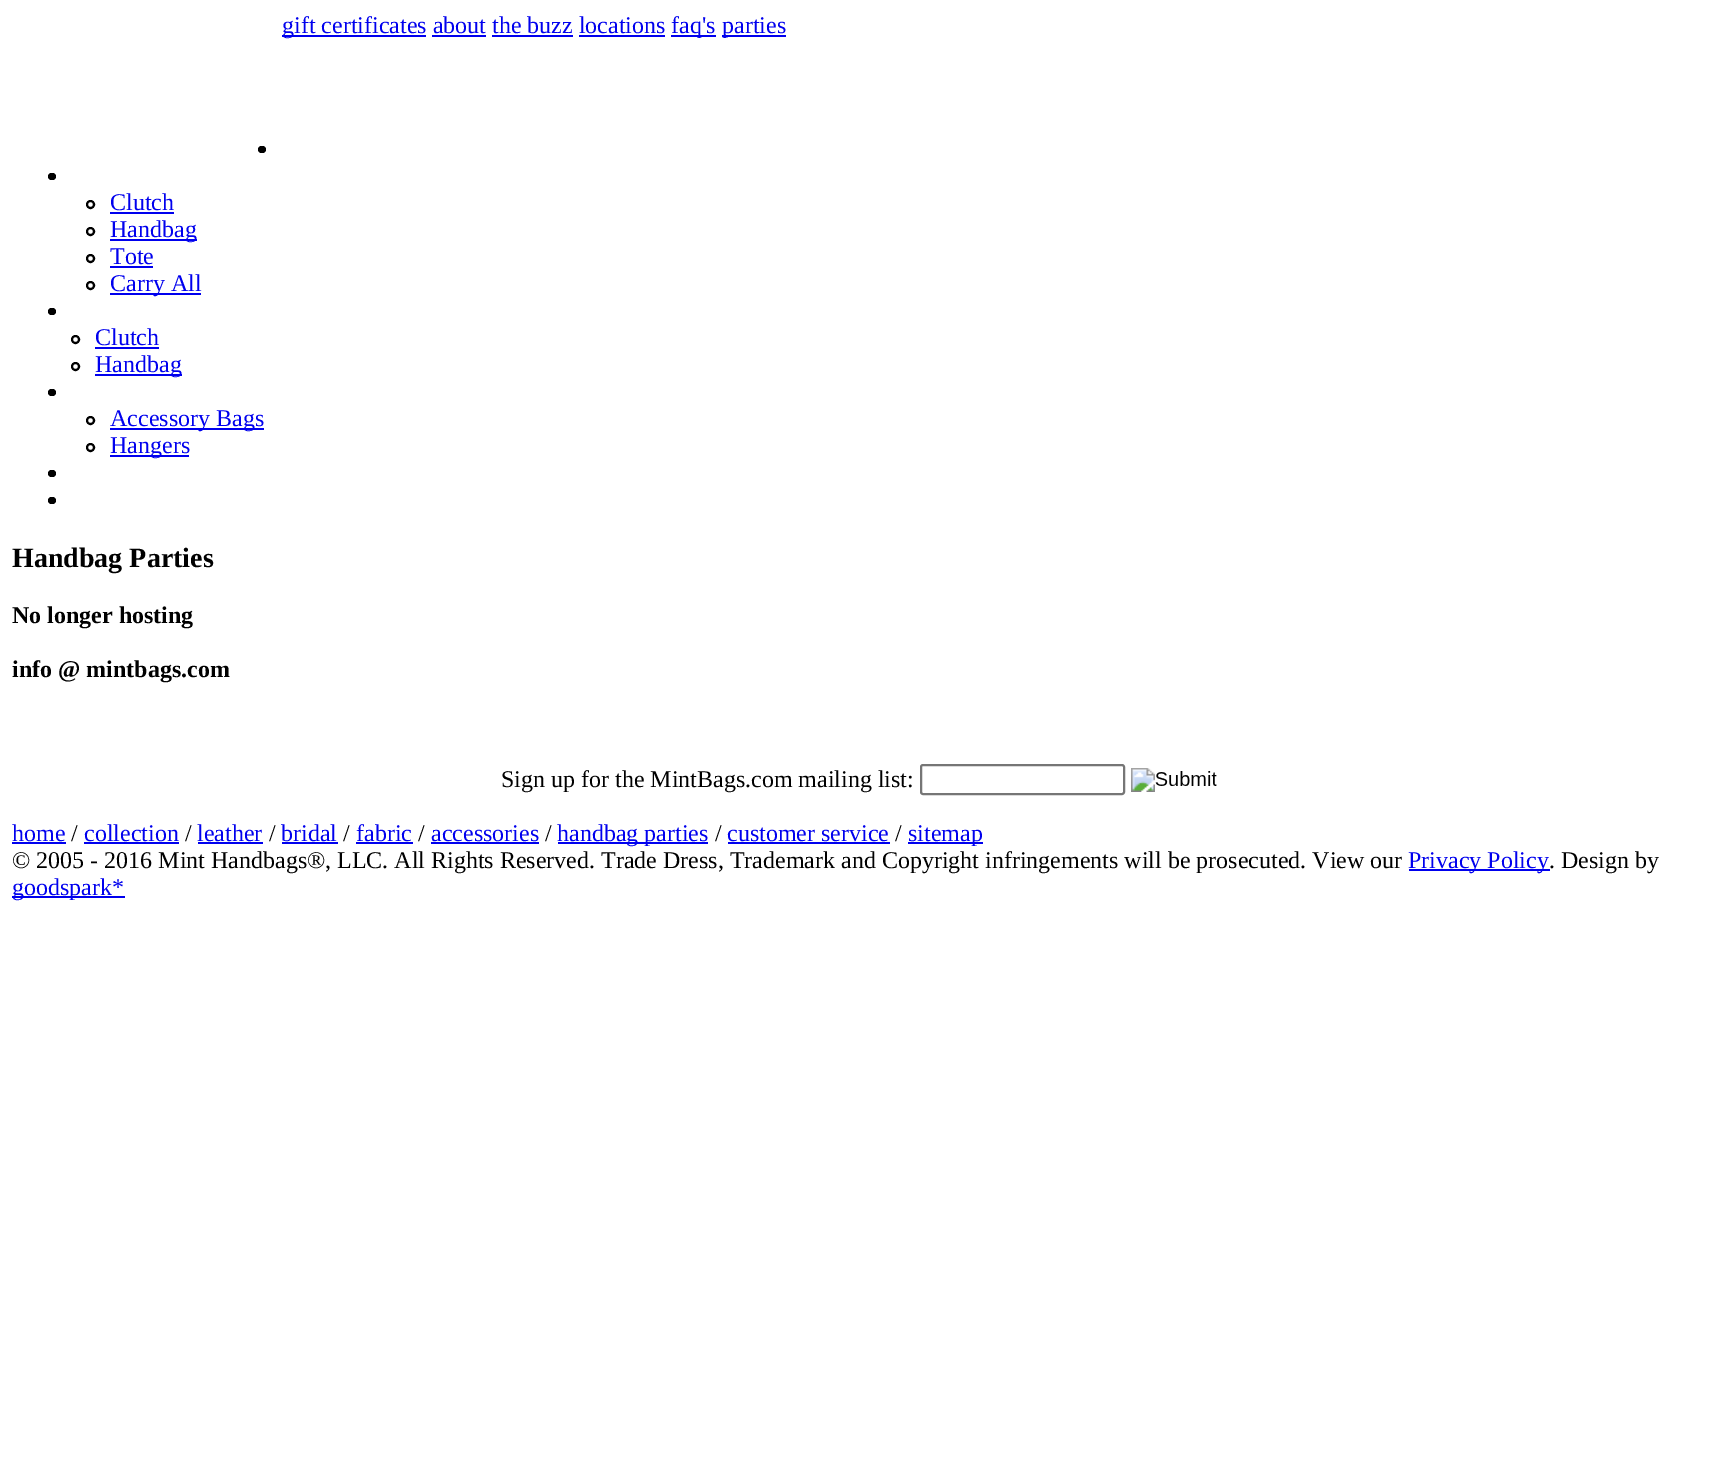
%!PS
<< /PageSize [1717 1483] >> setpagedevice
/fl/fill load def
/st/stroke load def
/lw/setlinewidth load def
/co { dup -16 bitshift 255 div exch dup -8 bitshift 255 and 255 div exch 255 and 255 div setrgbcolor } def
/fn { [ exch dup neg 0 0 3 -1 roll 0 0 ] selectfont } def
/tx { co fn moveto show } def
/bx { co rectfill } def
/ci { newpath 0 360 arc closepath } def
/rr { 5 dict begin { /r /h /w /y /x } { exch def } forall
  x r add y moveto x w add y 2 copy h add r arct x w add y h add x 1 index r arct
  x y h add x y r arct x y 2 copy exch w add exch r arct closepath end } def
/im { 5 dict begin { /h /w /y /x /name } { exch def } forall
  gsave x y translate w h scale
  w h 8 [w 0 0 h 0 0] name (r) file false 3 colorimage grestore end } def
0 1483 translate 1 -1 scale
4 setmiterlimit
0 0 1717 1483 16#FFFFFF bx
282 35 144 2 16#0000EE bx
671 35 45 2 16#0000EE bx
722 35 64 2 16#0000EE bx
432 35 54 2 16#0000EE bx
492 35 81 2 16#0000EE bx
579 35 86 2 16#0000EE bx
16#000000 co
258 146 8 7 3.5 rr fl
48 173 8 7 3.5 rr fl
2 lw
90.5 204.5 3.5 ci st
110 212 64 2 16#0000EE bx
16#000000 co
90.5 231.5 3.5 ci st
110 239 87 2 16#0000EE bx
16#000000 co
90.5 258.5 3.5 ci st
110 266 43 2 16#0000EE bx
16#000000 co
90.5 285.5 3.5 ci st
110 293 91 2 16#0000EE bx
16#000000 co
48 308 8 7 3.5 rr fl
75.5 339.5 3.5 ci st
95 347 64 2 16#0000EE bx
16#000000 co
75.5 366.5 3.5 ci st
95 374 87 2 16#0000EE bx
16#000000 co
48 389 8 7 3.5 rr fl
90.5 420.5 3.5 ci st
110 428 154 2 16#0000EE bx
16#000000 co
90.5 447.5 3.5 ci st
110 455 79 2 16#0000EE bx
16#000000 co
48 470 8 7 3.5 rr fl
48 497 8 7 3.5 rr fl
16#767676 co
921 765 203 29 2 rr st
(media/1.raw) 1131 768 86 24 im
12 842 54 2 16#0000EE bx
84 842 95 2 16#0000EE bx
198 842 65 2 16#0000EE bx
282 842 56 2 16#0000EE bx
356 842 57 2 16#0000EE bx
431 842 108 2 16#0000EE bx
558 842 150 2 16#0000EE bx
728 842 162 2 16#0000EE bx
908 842 75 2 16#0000EE bx
1409 869 141 2 16#0000EE bx
12 896 113 2 16#0000EE bx
(gift certificates about the buzz locations) 282 33 /LiberationSerif-Regular 24 16#0000EE tx
(faq's) 671 33 /LiberationSerif-Regular 24 16#0000EE tx
(parties) 722 33 /LiberationSerif-Regular 24 16#0000EE tx
(Clutch) 110 210 /LiberationSerif-Regular 24 16#0000EE tx
(Handbag) 110 237 /LiberationSerif-Regular 24 16#0000EE tx
(Tote) 110 264 /LiberationSerif-Regular 24 16#0000EE tx
(Carry All) 110 291 /LiberationSerif-Regular 24 16#0000EE tx
(Clutch) 95 345 /LiberationSerif-Regular 24 16#0000EE tx
(Handbag) 95 372 /LiberationSerif-Regular 24 16#0000EE tx
(Accessory Bags) 110 426 /LiberationSerif-Regular 24 16#0000EE tx
(Hangers) 110 453 /LiberationSerif-Regular 24 16#0000EE tx
(Handbag Parties) 12 567 /LiberationSerif-Bold 28 16#000000 tx
(No longer hosting) 12 623 /LiberationSerif-Bold 24 16#000000 tx
(info @ mintbags.com) 12 677 /LiberationSerif-Bold 24 16#000000 tx
(Sign up for the MintBags.com mailing list:) 501 787 /LiberationSerif-Regular 24 16#000000 tx
(home) 12 841 /LiberationSerif-Regular 24 16#0000EE tx
(/) 71 841 /LiberationSerif-Regular 24 16#000000 tx
(collection) 84 841 /LiberationSerif-Regular 24 16#0000EE tx
(/) 185 841 /LiberationSerif-Regular 24 16#000000 tx
(leather) 197 841 /LiberationSerif-Regular 24 16#0000EE tx
(/) 269 841 /LiberationSerif-Regular 24 16#000000 tx
(bridal) 281 841 /LiberationSerif-Regular 24 16#0000EE tx
(/) 343 841 /LiberationSerif-Regular 24 16#000000 tx
(fabric) 356 841 /LiberationSerif-Regular 24 16#0000EE tx
(/) 418 841 /LiberationSerif-Regular 24 16#000000 tx
(accessories) 431 841 /LiberationSerif-Regular 24 16#0000EE tx
(/) 545 841 /LiberationSerif-Regular 24 16#000000 tx
(handbag parties) 557 841 /LiberationSerif-Regular 24 16#0000EE tx
(/) 715 841 /LiberationSerif-Regular 24 16#000000 tx
(customer service) 727 841 /LiberationSerif-Regular 24 16#0000EE tx
(/) 895 841 /LiberationSerif-Regular 24 16#000000 tx
(sitemap) 908 841 /LiberationSerif-Regular 24 16#0000EE tx
(© 2005 - 2016 Mint Handbags®, LLC. All Rights Reserved. Trade Dress, Trademark and Copyright infringements will be prosecuted. View our) 12 868 /LiberationSerif-Regular 24 16#000000 tx
(Privacy Policy) 1408 868 /LiberationSerif-Regular 24 16#0000EE tx
(. Design by) 1549 868 /LiberationSerif-Regular 24 16#000000 tx
(goodspark*) 12 895 /LiberationSerif-Regular 24 16#0000EE tx
showpage
